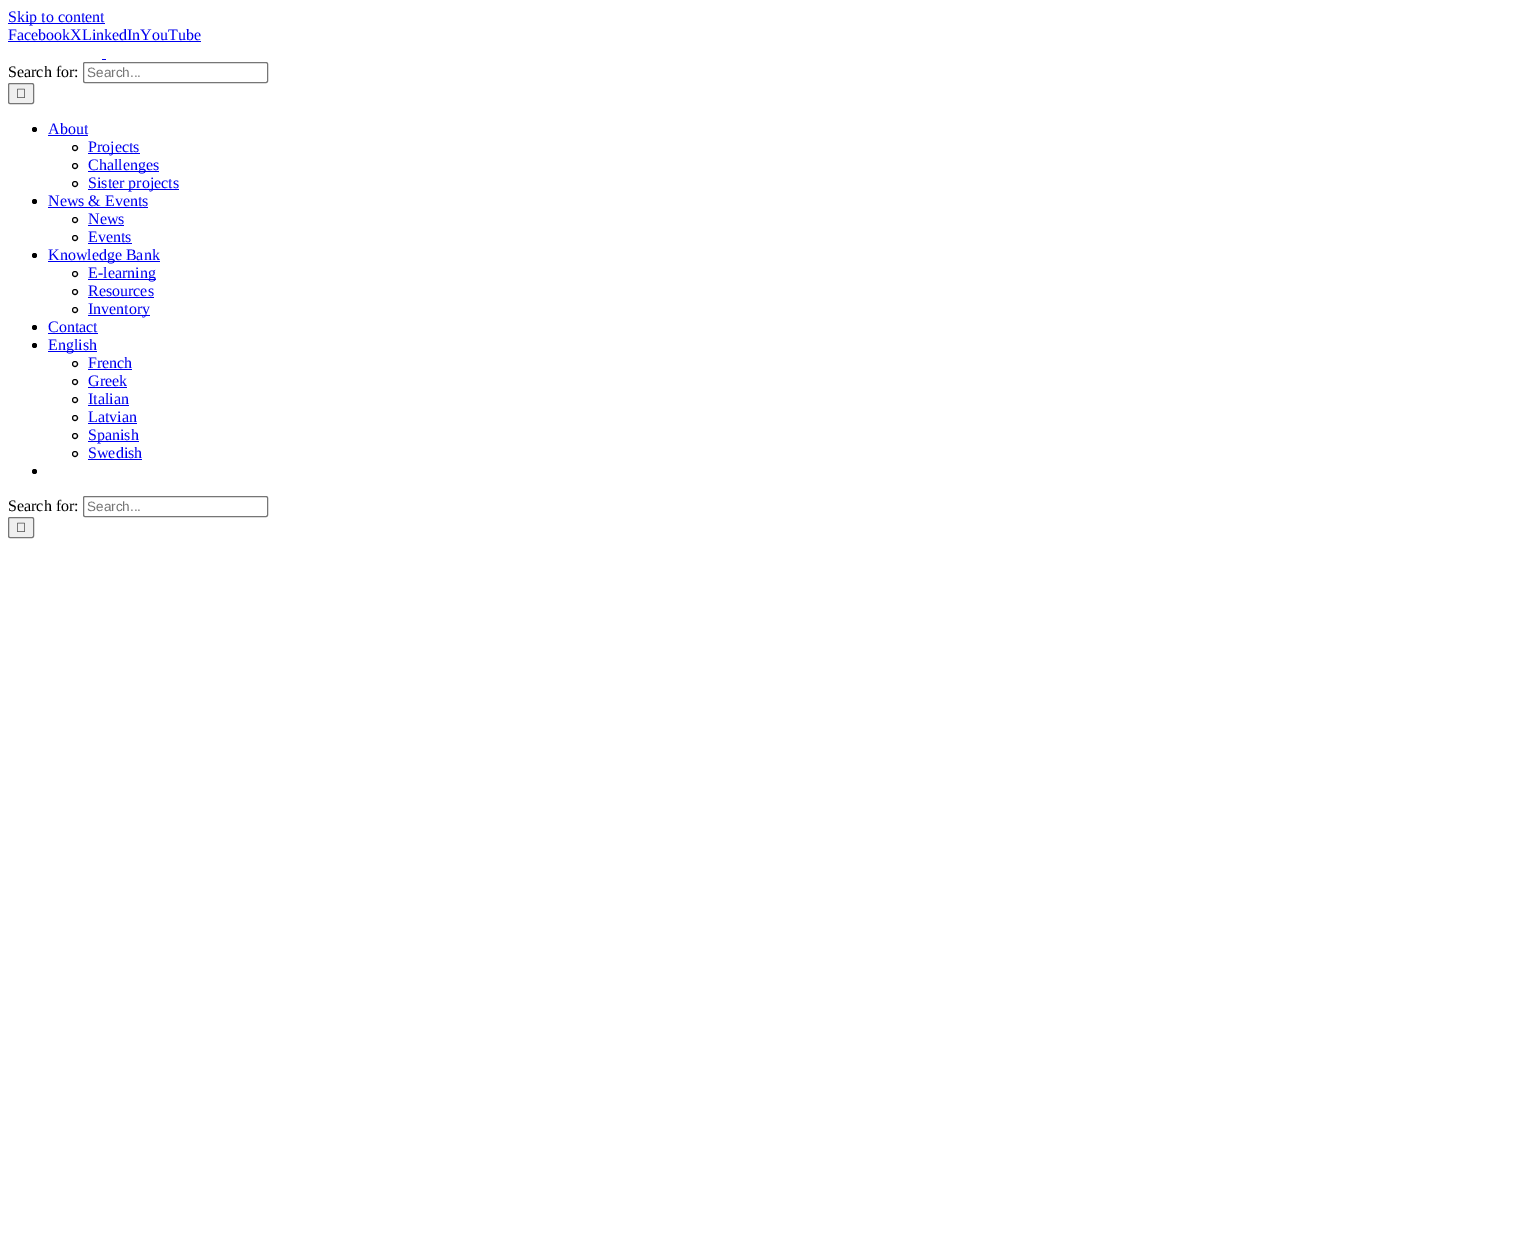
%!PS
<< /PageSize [1526 1239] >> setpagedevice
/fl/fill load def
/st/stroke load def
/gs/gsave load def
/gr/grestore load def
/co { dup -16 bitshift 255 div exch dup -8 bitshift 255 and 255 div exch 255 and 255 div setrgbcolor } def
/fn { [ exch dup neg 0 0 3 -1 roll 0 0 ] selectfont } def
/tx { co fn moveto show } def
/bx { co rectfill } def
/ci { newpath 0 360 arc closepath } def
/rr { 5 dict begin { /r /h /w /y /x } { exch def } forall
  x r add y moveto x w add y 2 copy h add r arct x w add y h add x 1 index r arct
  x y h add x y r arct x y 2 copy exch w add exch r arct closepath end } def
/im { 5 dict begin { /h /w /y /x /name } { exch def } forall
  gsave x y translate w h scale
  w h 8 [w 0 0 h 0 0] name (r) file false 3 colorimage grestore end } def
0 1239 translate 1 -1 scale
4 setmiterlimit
0 0 1526 1239 16#FFFFFF bx
8 23 97 1 16#0000EE bx
8 41 193 1 16#0000EE bx
102 59 4 1 16#0000EE bx
16#767676 co
83.5 62.5 184 20 1.5 rr st
16#EFEFEF co
8.5 83.5 25 20 1.5 rr gs fl gr
16#767676 co
st
(media/1.raw) 17 88 8 10 im
16#000000 co
34.5 129.5 2.5 ci fl
48 135 40 1 16#0000EE bx
16#000000 co
75 148 2.5 ci st
88 153 52 1 16#0000EE bx
16#000000 co
75 166 2.5 ci st
88 171 71 1 16#0000EE bx
16#000000 co
75 184 2.5 ci st
88 189 91 1 16#0000EE bx
16#000000 co
34.5 201.5 2.5 ci fl
48 207 100 1 16#0000EE bx
16#000000 co
75 220 2.5 ci st
88 225 36 1 16#0000EE bx
16#000000 co
75 238 2.5 ci st
88 243 44 1 16#0000EE bx
16#000000 co
34.5 255.5 2.5 ci fl
48 261 112 1 16#0000EE bx
16#000000 co
75 274 2.5 ci st
88 279 68 1 16#0000EE bx
16#000000 co
75 292 2.5 ci st
88 297 66 1 16#0000EE bx
16#000000 co
75 310 2.5 ci st
88 315 62 1 16#0000EE bx
16#000000 co
34.5 327.5 2.5 ci fl
48 333 50 1 16#0000EE bx
16#000000 co
34.5 345.5 2.5 ci fl
48 351 49 1 16#0000EE bx
16#000000 co
75 364 2.5 ci st
88 369 44 1 16#0000EE bx
16#000000 co
75 382 2.5 ci st
88 387 39 1 16#0000EE bx
16#000000 co
75 400 2.5 ci st
88 405 41 1 16#0000EE bx
16#000000 co
75 418 2.5 ci st
88 423 49 1 16#0000EE bx
16#000000 co
75 436 2.5 ci st
88 441 51 1 16#0000EE bx
16#000000 co
75 454 2.5 ci st
88 459 54 1 16#0000EE bx
16#000000 co
34.5 471.5 2.5 ci fl
16#767676 co
83.5 496.5 184 20 1.5 rr st
16#EFEFEF co
8.5 517.5 25 20 1.5 rr gs fl gr
16#767676 co
st
(media/1.raw) 17 522 8 10 im
(Skip to content) 8 22 /LiberationSerif-Regular 16 16#0000EE tx
(FacebookXLinkedInYouTube) 8 40 /LiberationSerif-Regular 16 16#0000EE tx
(Search for:) 8 77 /LiberationSerif-Regular 16 16#000000 tx
(Search...) 87 77 /LiberationSans-Regular 13.5 16#757575 tx
(About) 48 134 /LiberationSerif-Regular 16 16#0000EE tx
(Projects) 88 152 /LiberationSerif-Regular 16 16#0000EE tx
(Challenges) 88 170 /LiberationSerif-Regular 16 16#0000EE tx
(Sister projects) 88 188 /LiberationSerif-Regular 16 16#0000EE tx
(News & Events) 48 206 /LiberationSerif-Regular 16 16#0000EE tx
(News) 88 224 /LiberationSerif-Regular 16 16#0000EE tx
(Events) 88 242 /LiberationSerif-Regular 16 16#0000EE tx
(Knowledge Bank) 48 260 /LiberationSerif-Regular 16 16#0000EE tx
(E-learning) 88 278 /LiberationSerif-Regular 16 16#0000EE tx
(Resources) 88 296 /LiberationSerif-Regular 16 16#0000EE tx
(Inventory) 88 314 /LiberationSerif-Regular 16 16#0000EE tx
(Contact) 48 332 /LiberationSerif-Regular 16 16#0000EE tx
(English) 48 350 /LiberationSerif-Regular 16 16#0000EE tx
(French) 88 368 /LiberationSerif-Regular 16 16#0000EE tx
(Greek) 88 386 /LiberationSerif-Regular 16 16#0000EE tx
(Italian) 88 404 /LiberationSerif-Regular 16 16#0000EE tx
(Latvian) 88 422 /LiberationSerif-Regular 16 16#0000EE tx
(Spanish) 88 440 /LiberationSerif-Regular 16 16#0000EE tx
(Swedish) 88 458 /LiberationSerif-Regular 16 16#0000EE tx
(Search for:) 8 511 /LiberationSerif-Regular 16 16#000000 tx
(Search...) 87 511 /LiberationSans-Regular 13.5 16#757575 tx
showpage
